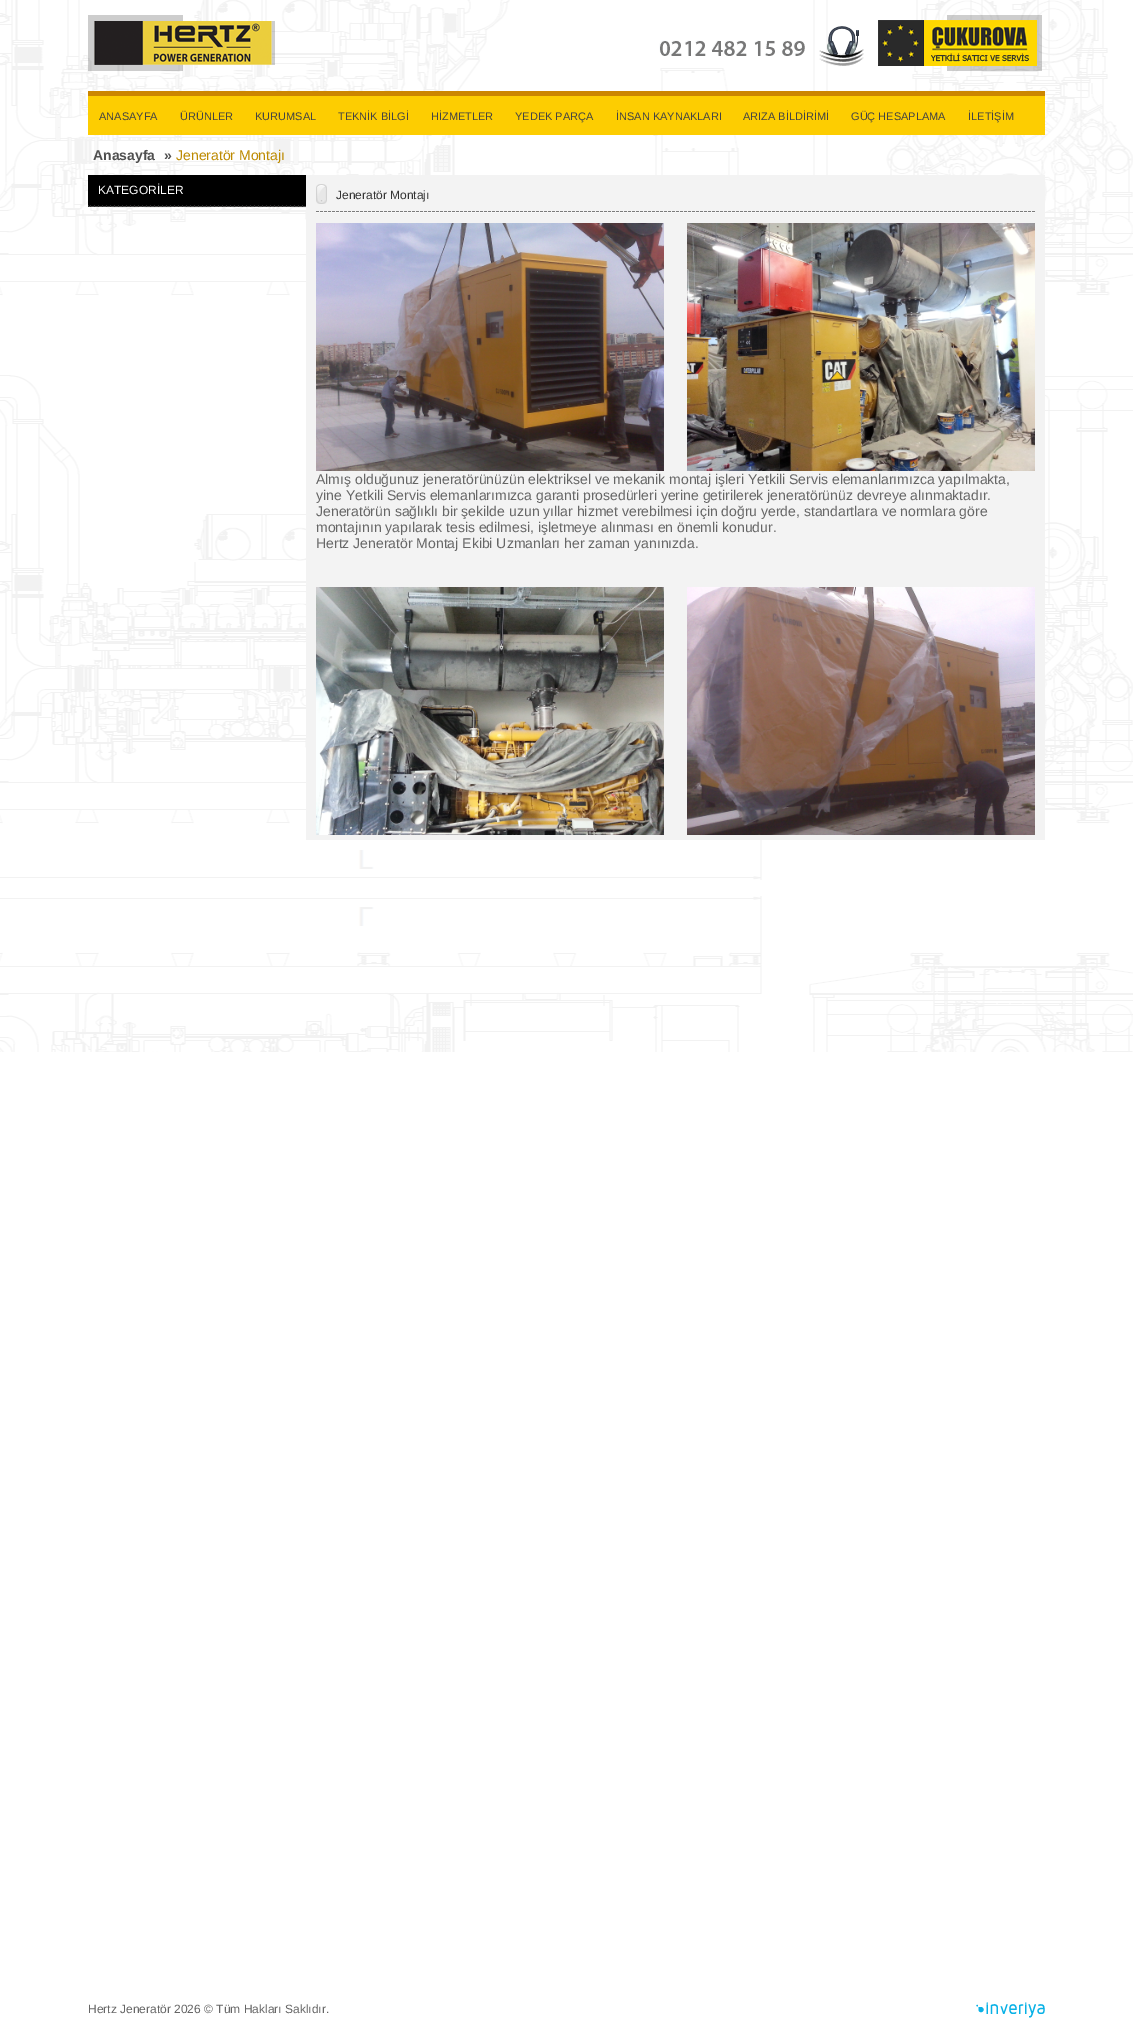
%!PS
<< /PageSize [1133 2020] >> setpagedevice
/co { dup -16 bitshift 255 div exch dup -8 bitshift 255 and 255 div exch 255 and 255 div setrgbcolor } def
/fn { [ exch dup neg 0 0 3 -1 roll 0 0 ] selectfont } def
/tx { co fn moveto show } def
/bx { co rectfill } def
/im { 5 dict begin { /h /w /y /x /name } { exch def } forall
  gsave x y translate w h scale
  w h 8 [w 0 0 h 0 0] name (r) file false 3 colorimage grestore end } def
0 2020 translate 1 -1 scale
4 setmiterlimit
0 0 1133 2020 16#FFFFFF bx
(media/1.raw) 0 0 1133 1052 im
(media/2.raw) 88 15 187 56 im
(media/3.raw) 659 15 383 56 im
(media/4.raw) 88 91 957 44 im
(media/5.raw) 88 175 218 32 im
306 175 739 665 16#F3F3F3 bx
(media/6.raw) 316 184 719 29 im
(media/7.raw) 316 223 348 248 im
(media/8.raw) 687 223 348 248 im
(media/9.raw) 316 587 348 248 im
(media/10.raw) 687 587 348 248 im
(media/11.raw) 976 2002 69 16 im
(ANASAYFA) 99 120 /LiberationSans-Regular 11 16#444444 tx
(ÜRÜNLER) 180 120 /LiberationSans-Regular 11 16#444444 tx
(KURUMSAL) 255 120 /LiberationSans-Regular 11 16#444444 tx
(TEKNİK BİLGİ) 338 120 /LiberationSans-Regular 11 16#444444 tx
(HİZMETLER) 431 120 /LiberationSans-Regular 11 16#444444 tx
(YEDEK PARÇA) 515 120 /LiberationSans-Regular 11 16#444444 tx
(İNSAN KAYNAKLARI) 616 120 /LiberationSans-Regular 11 16#444444 tx
(ARIZA BİLDİRİMİ) 743 120 /LiberationSans-Regular 11 16#444444 tx
(GÜÇ HESAPLAMA) 851 120 /LiberationSans-Regular 11 16#444444 tx
(İLETİŞİM) 968 120 /LiberationSans-Regular 11 16#444444 tx
(Anasayfa) 93 160 /LiberationSans-Bold 14 16#505050 tx
(») 164 160 /LiberationSans-Bold 14 16#505050 tx
(Jeneratör Montajı) 176 160 /LiberationSans-Regular 14 16#BD8A00 tx
(KATEGORİLER) 98 194 /LiberationSans-Regular 12 16#FFFFFF tx
(Jeneratör Montajı) 336 199 /LiberationSans-Regular 12 16#333333 tx
(Almış olduğunuz jeneratörünüzün elektriksel ve mekanik montaj işleri Yetkili Servis elemanlarımızca yapılmakta,) 316 484 /LiberationSans-Regular 14 16#666666 tx
(yine Yetkili Servis elemanlarımızca garanti prosedürleri yerine getirilerek jeneratörünüz devreye alınmaktadır.) 316 500 /LiberationSans-Regular 14 16#666666 tx
(Jeneratörün sağlıklı bir şekilde uzun yıllar hizmet verebilmesi için doğru yerde, standartlara ve normlara göre) 316 516 /LiberationSans-Regular 14 16#666666 tx
(montajının yapılarak tesis edilmesi, işletmeye alınması en önemli konudur.) 316 532 /LiberationSans-Regular 14 16#666666 tx
(Hertz Jeneratör Montaj Ekibi Uzmanları her zaman yanınızda.) 316 548 /LiberationSans-Regular 14 16#666666 tx
(Hertz Jeneratör 2026 © Tüm Hakları Saklıdır.) 88 2013 /LiberationSans-Regular 12 16#666666 tx
showpage
